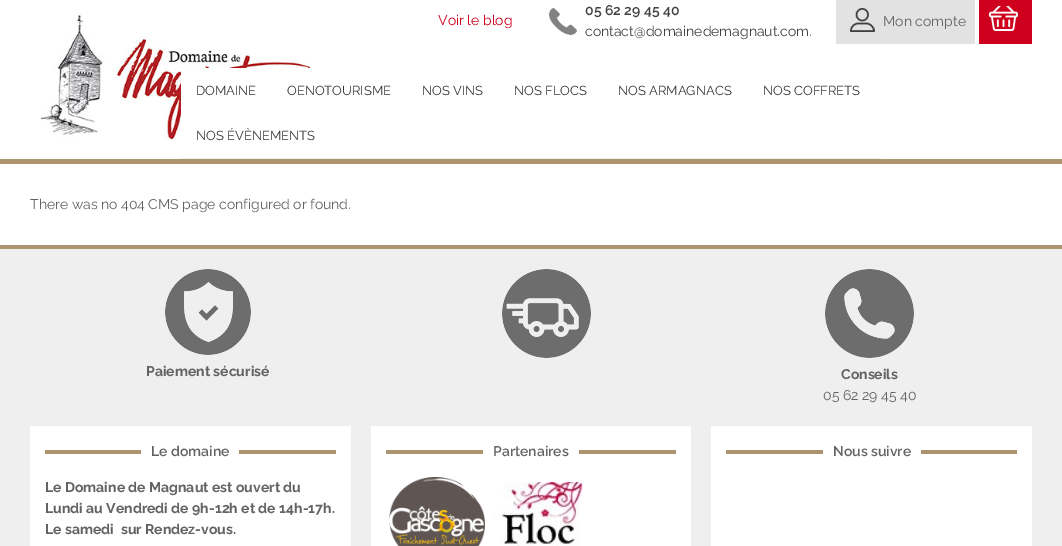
%!PS
<< /PageSize [1062 546] >> setpagedevice
/fl/fill load def
/co { dup -16 bitshift 255 div exch dup -8 bitshift 255 and 255 div exch 255 and 255 div setrgbcolor } def
/fn { [ exch dup neg 0 0 3 -1 roll 0 0 ] selectfont } def
/tx { co fn moveto show } def
/bx { co rectfill } def
/rr { 5 dict begin { /r /h /w /y /x } { exch def } forall
  x r add y moveto x w add y 2 copy h add r arct x w add y h add x 1 index r arct
  x y h add x y r arct x y 2 copy exch w add exch r arct closepath end } def
/im { 5 dict begin { /h /w /y /x /name } { exch def } forall
  gsave x y translate w h scale
  w h 8 [w 0 0 h 0 0] name (r) file false 3 colorimage grestore end } def
0 546 translate 1 -1 scale
4 setmiterlimit
0 0 1062 546 16#FFFFFF bx
0 159 1062 5 16#AC9471 bx
(media/1.raw) 40 15 272 125 im
(media/2.raw) 549 8 28 27 im
836 0 139 44 16#E2E2E2 bx
(media/3.raw) 850 8 25 24 im
979 0 53 44 16#CE001D bx
(media/4.raw) 989 6 29 26 im
181 158 700 1 16#EDEDED bx
16#FFFFFF co
181 68 700 90 2 rr fl
0 249 1062 297 16#EFEFEF bx
0 245 1062 4 16#AC9471 bx
(media/5.raw) 502 269 89 89 im
(media/6.raw) 165 269 86 86 im
(media/7.raw) 825 269 89 89 im
30 426 321 120 16#FFFFFF bx
45 450 291 4 16#AC9471 bx
141 450 98 4 16#FFFFFF bx
371 426 320 120 16#FFFFFF bx
386 450 290 4 16#AC9471 bx
483 450 96 4 16#FFFFFF bx
(media/8.raw) 389 477 96 69 im
(media/9.raw) 494 482 89 64 im
711 426 321 120 16#FFFFFF bx
726 450 291 4 16#AC9471 bx
823 450 98 4 16#FFFFFF bx
(Voir le blog) 438 25 /Raleway-Regular 14 16#CE001D tx
(05 62 29 45 40) 585 15 /Raleway-SemiBold 14 16#424242 tx
(contact@domainedemagnaut.com) 585 36 /Raleway-Regular 14 16#424242 tx
(.) 809 36 /Raleway-Regular 14 16#636363 tx
(Mon compte) 883 26 /Raleway-Regular 14 16#636363 tx
(DOMAINE) 196 95 /Raleway-Regular 13 16#373737 tx
(OENOTOURISME) 287 95 /Raleway-Regular 13 16#373737 tx
(NOS VINS) 422 95 /Raleway-Regular 13 16#373737 tx
(NOS FLOCS) 514 95 /Raleway-Regular 13 16#373737 tx
(NOS ARMAGNACS) 618 95 /Raleway-Regular 13 16#373737 tx
(NOS COFFRETS) 763 95 /Raleway-Regular 13 16#373737 tx
(NOS ÉVÈNEMENTS) 196 140 /Raleway-Regular 13 16#373737 tx
(There was no 404 CMS page configured or found.) 30 209 /Raleway-Regular 14 16#636363 tx
(Paiement sécurisé) 146 376 /Raleway-Bold 14 16#636363 tx
(Conseils) 841 379 /Raleway-Bold 14 16#636363 tx
(05 62 29 45 40) 823 400 /Raleway-Regular 14 16#636363 tx
(Le domaine) 151 456 /Raleway-SemiBold 14 16#636363 tx
(Le Domaine de Magnaut est ouvert du) 45 492 /Raleway-Bold 14 16#636363 tx
(Lundi au Vendredi de 9h-12h et de 14h-17h.) 45 513 /Raleway-Bold 14 16#636363 tx
(Le samedi  sur Rendez-vous.) 45 534 /Raleway-Bold 14 16#636363 tx
(Partenaires) 493 456 /Raleway-SemiBold 14 16#636363 tx
(Nous suivre) 833 456 /Raleway-SemiBold 14 16#636363 tx
showpage
